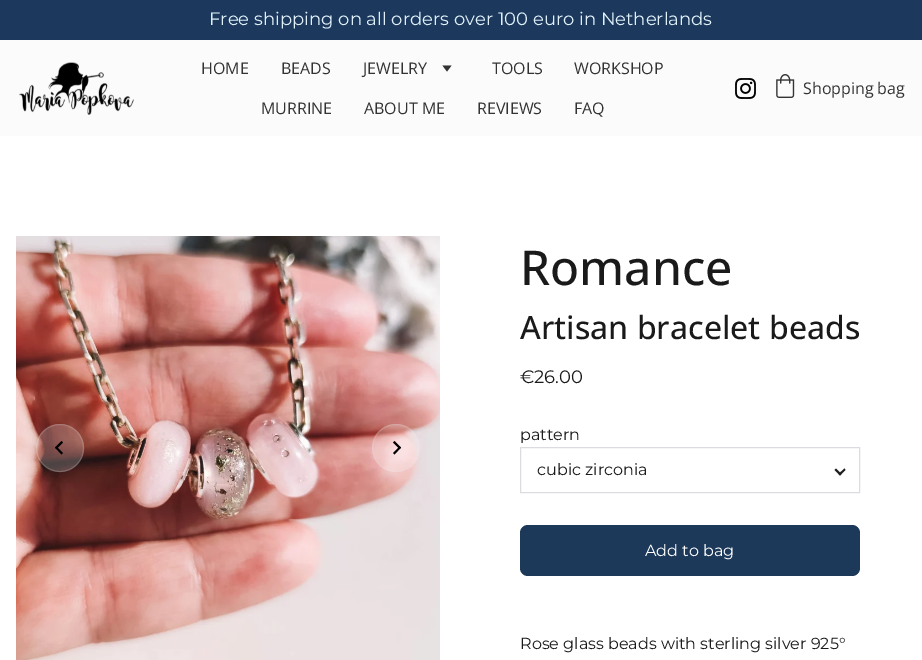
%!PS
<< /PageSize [922 660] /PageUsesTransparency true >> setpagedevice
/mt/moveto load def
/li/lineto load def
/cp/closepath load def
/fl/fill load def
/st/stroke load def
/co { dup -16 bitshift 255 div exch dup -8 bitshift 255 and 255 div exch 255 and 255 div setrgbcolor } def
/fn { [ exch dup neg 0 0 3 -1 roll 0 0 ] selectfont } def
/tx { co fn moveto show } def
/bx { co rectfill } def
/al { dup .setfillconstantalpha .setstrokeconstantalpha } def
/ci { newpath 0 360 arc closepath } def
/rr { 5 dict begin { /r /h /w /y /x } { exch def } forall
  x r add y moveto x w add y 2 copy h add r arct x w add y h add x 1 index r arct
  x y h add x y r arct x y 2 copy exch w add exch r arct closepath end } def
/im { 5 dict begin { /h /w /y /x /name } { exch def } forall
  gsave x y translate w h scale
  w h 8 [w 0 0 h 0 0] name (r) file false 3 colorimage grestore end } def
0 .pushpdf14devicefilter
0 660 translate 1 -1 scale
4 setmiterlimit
0 0 922 660 16#FFFFFF bx
0 0 922 40 16#1C385D bx
0 40 922 96 16#FBFBFB bx
(media/1.raw) 19 62 115 53 im
16#333333 co
447 71.5 mt 442.5 65.5 li 451.5 65.5 li cp fl
(media/2.raw) 735 78 21 21 im
(media/3.raw) 776 74 19 24 im
(media/4.raw) 16 236 424 424 im
0.2 al
16#DADCE0 co
60 448 23.5 ci st
16#FFFFFF co
60 448 24 ci fl
1 al
16#000000 co
61.5 454.5 mt 55 447.5 li 56.5 446.5 li 63 453 li cp fl
56.5 449 mt 55 447.5 li 61.5 441 li 63 442.5 li cp fl
0.2 al
16#DADCE0 co
396 448 23.5 ci st
16#FFFFFF co
396 448 24 ci fl
1 al
16#000000 co
394.5 441 mt 401 447.5 li 399.5 449 li 393 442.5 li cp fl
399.5 446.5 mt 401 447.5 li 394.5 454.5 li 393 453 li cp fl
16#DADCE0 co
520.5 447.5 339 45 rectstroke
16#1D1E20 co
845.5 470 mt 840 475.5 li 838.5 474 li 844.5 468.5 li cp fl
841.5 474 mt 840 475.5 li 834.5 470 li 836 468.5 li cp fl
16#1C395A co
520 525 340 51 8 rr fl
(Free shipping on all orders over 100 euro in Netherlands) 209 25 /Montserrat-Thin 18 16#DFF0F8 tx
(HOME) 201 74 /OpenSans-Regular 16 16#333333 tx
(BEADS) 281 74 /OpenSans-Regular 16 16#333333 tx
(JEWELRY) 363 74 /OpenSans-Regular 16 16#333333 tx
(TOOLS) 492 74 /OpenSans-Regular 16 16#333333 tx
(WORKSHOP) 574 74 /OpenSans-Regular 16 16#333333 tx
(MURRINE) 261 114 /OpenSans-Regular 16 16#333333 tx
(ABOUT ME) 364 114 /OpenSans-Regular 16 16#333333 tx
(REVIEWS) 477 114 /OpenSans-Regular 16 16#333333 tx
(FAQ) 574 114 /OpenSans-Regular 16 16#333333 tx
(Shopping bag) 803 94 /OpenSans-Regular 16 16#333333 tx
(Romance) 520 285 /OpenSans-Medium 48 16#1A1A1A tx
(Artisan bracelet beads) 520 339 /OpenSans-Medium 32 16#1A1A1A tx
(€26.00) 520 383 /Montserrat-Thin 18 16#1A1A1A tx
(pattern) 520 440 /Montserrat-Thin 16 16#1A1A1A tx
(cubic zirconia) 537 475 /Montserrat-Thin 16 16#1A1A1A tx
(Add to bag) 645 556 /Montserrat-Thin 16 16#FFFFFF tx
(Rose glass beads with sterling silver 925°) 520 649 /Montserrat-Thin 16 16#1A1A1A tx
.poppdf14devicefilter showpage
